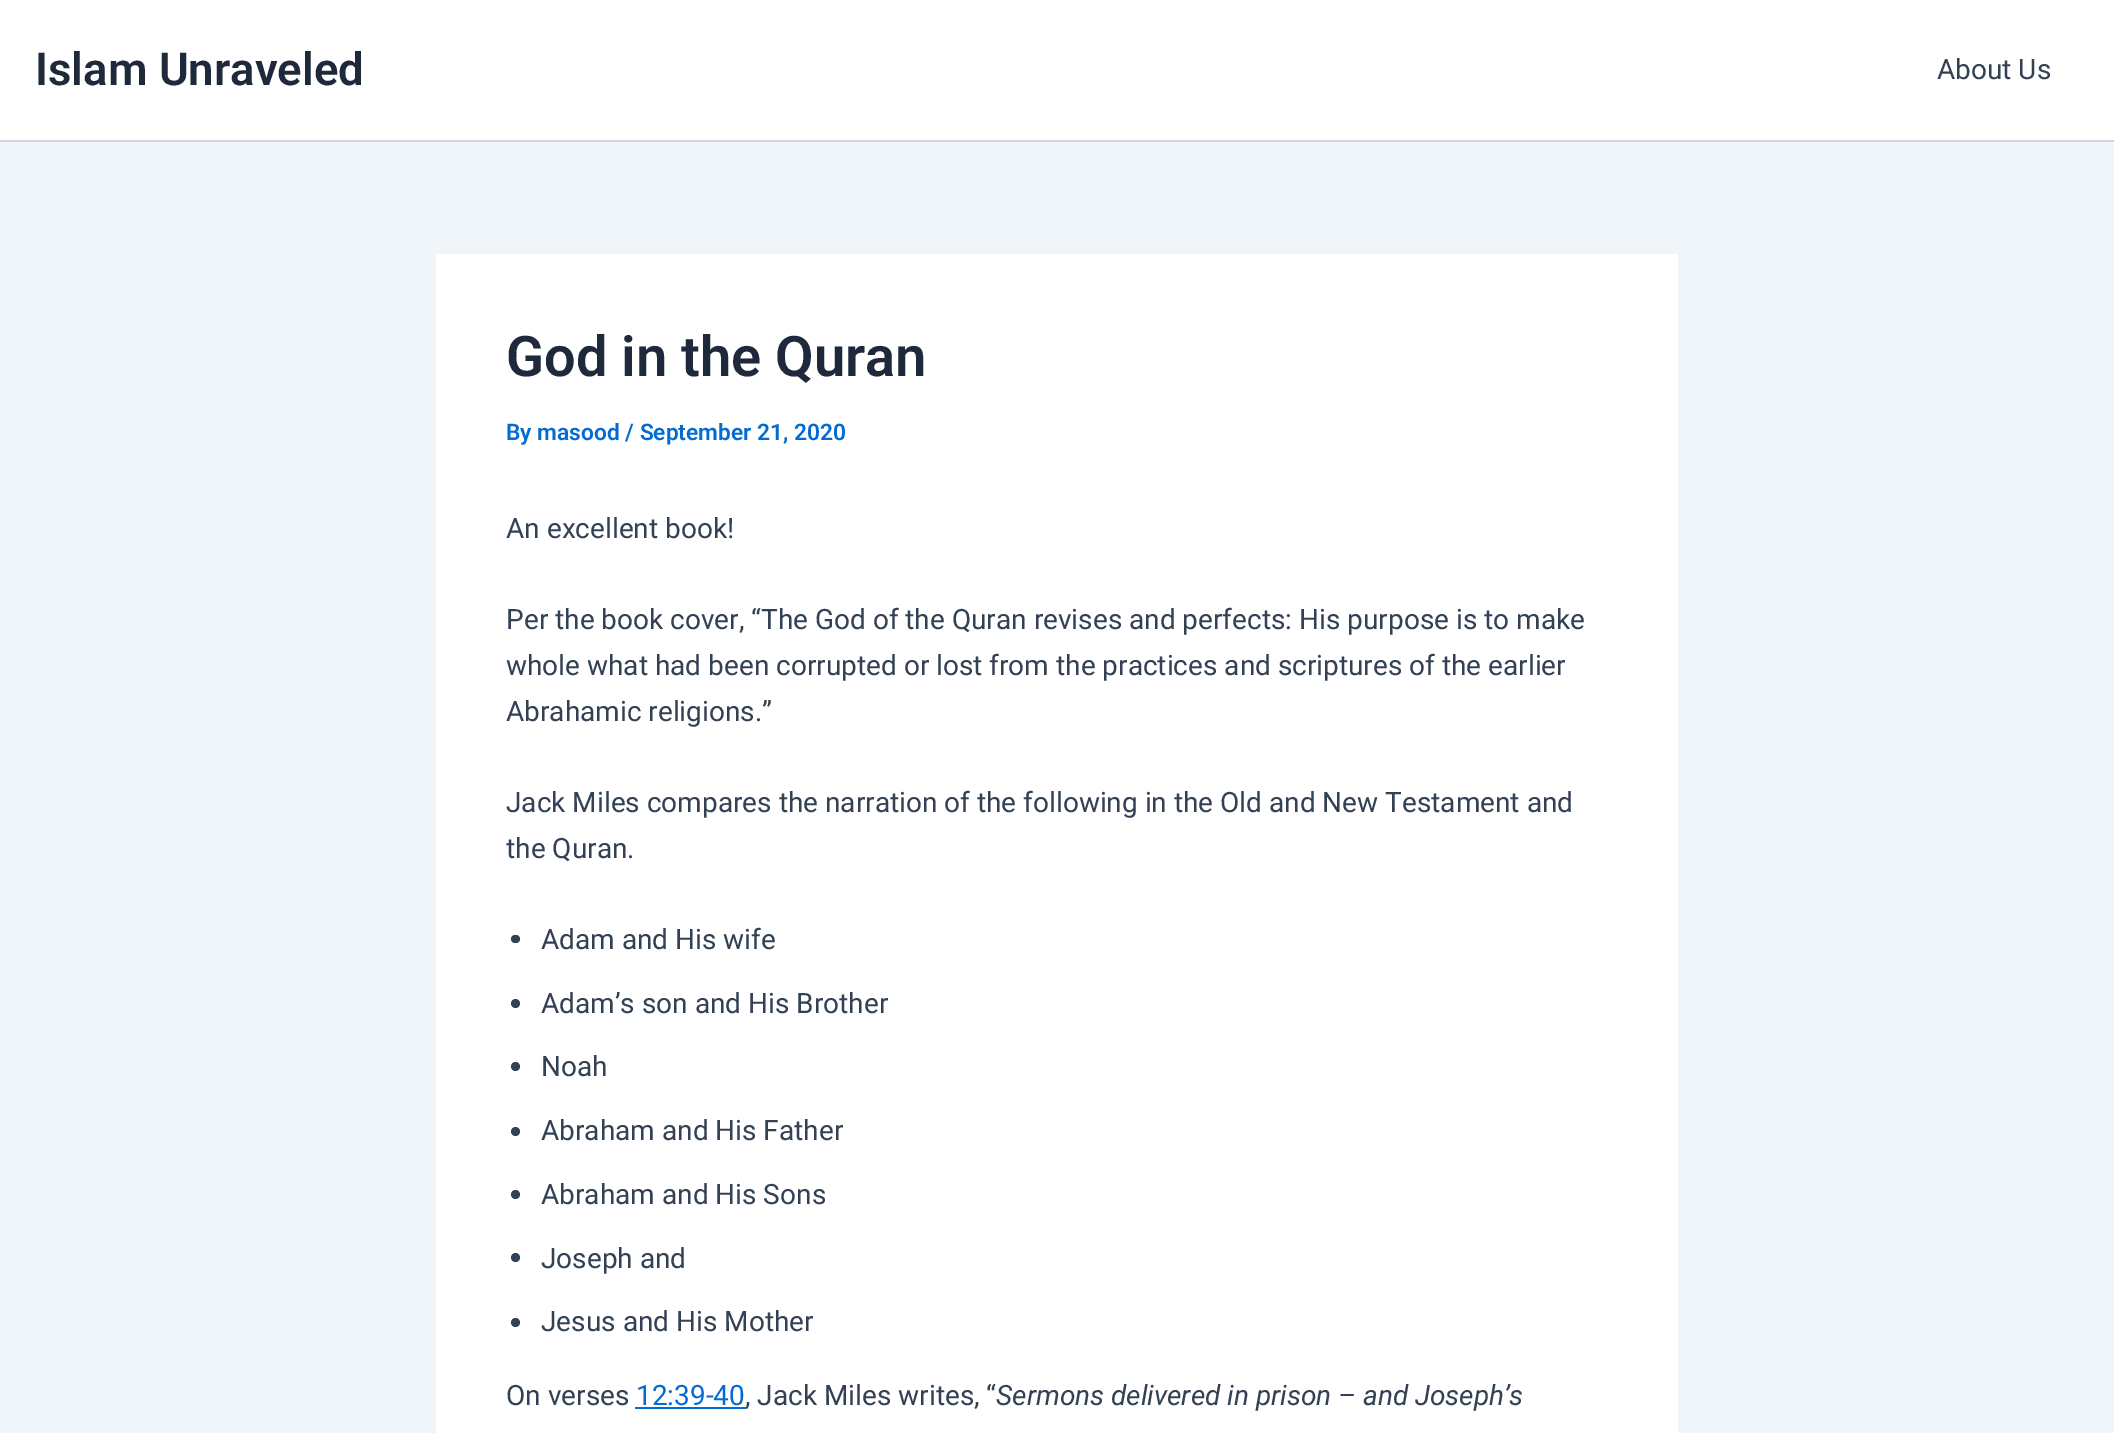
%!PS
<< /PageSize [2114 1433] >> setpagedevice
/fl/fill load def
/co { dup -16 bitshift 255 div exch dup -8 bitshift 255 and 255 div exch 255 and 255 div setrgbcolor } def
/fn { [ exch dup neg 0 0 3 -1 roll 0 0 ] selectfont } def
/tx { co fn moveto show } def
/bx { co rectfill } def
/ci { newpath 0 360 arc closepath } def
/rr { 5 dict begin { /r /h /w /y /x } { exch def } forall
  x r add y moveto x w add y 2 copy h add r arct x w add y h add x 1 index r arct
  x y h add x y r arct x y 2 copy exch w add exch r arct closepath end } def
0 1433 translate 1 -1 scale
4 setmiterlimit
0 0 2114 1433 16#F0F5FA bx
0 0 2114 140 16#FFFFFF bx
0 140 2114 2 16#D1D5DB bx
436 254 1242 1179 16#FFFFFF bx
16#334155 co
511 935 9 8 4 rr fl
515.5 1003.5 4.5 ci fl
515.5 1066.5 4.5 ci fl
515.5 1131.5 4.5 ci fl
515.5 1194.5 4.5 ci fl
515.5 1257.5 4.5 ci fl
515.5 1322.5 4.5 ci fl
635 1407 111 2 16#046BD2 bx
(Islam Unraveled) 35 85 /Roboto-SemiBold 45.5 16#1E293B tx
(About Us) 1937 79 /Roboto-Regular 28 16#334155 tx
(God in the Quran) 506 376 /Roboto-SemiBold 56 16#1E293B tx
(By masood / September 21, 2020) 506 440 /Roboto-SemiBold 22.75 16#046BD2 tx
(An excellent book!) 506 538 /Roboto-Regular 28 16#334155 tx
(Per the book cover, “The God of the Quran revises and perfects: His purpose is to make) 506 629 /Roboto-Regular 28 16#334155 tx
(whole what had been corrupted or lost from the practices and scriptures of the earlier) 506 675 /Roboto-Regular 28 16#334155 tx
(Abrahamic religions.”) 506 721 /Roboto-Regular 28 16#334155 tx
(Jack Miles compares the narration of the following in the Old and New Testament and) 506 812 /Roboto-Regular 28 16#334155 tx
(the Quran.) 506 858 /Roboto-Regular 28 16#334155 tx
(Adam and His wife) 541 949 /Roboto-Regular 28 16#334155 tx
(Adam’s son and His Brother) 541 1013 /Roboto-Regular 28 16#334155 tx
(Noah) 541 1076 /Roboto-Regular 28 16#334155 tx
(Abraham and His Father) 541 1140 /Roboto-Regular 28 16#334155 tx
(Abraham and His Sons) 541 1204 /Roboto-Regular 28 16#334155 tx
(Joseph and) 541 1268 /Roboto-Regular 28 16#334155 tx
(Jesus and His Mother) 541 1331 /Roboto-Regular 28 16#334155 tx
(On verses) 506 1405 /Roboto-Regular 28 16#334155 tx
(12:39-40) 636 1405 /Roboto-Regular 28 16#046BD2 tx
(, Jack Miles writes, “) 745 1405 /Roboto-Regular 28 16#334155 tx
(Sermons delivered in prison – and Joseph’s) 996 1405 /Roboto-Italic 28 16#334155 tx
showpage
